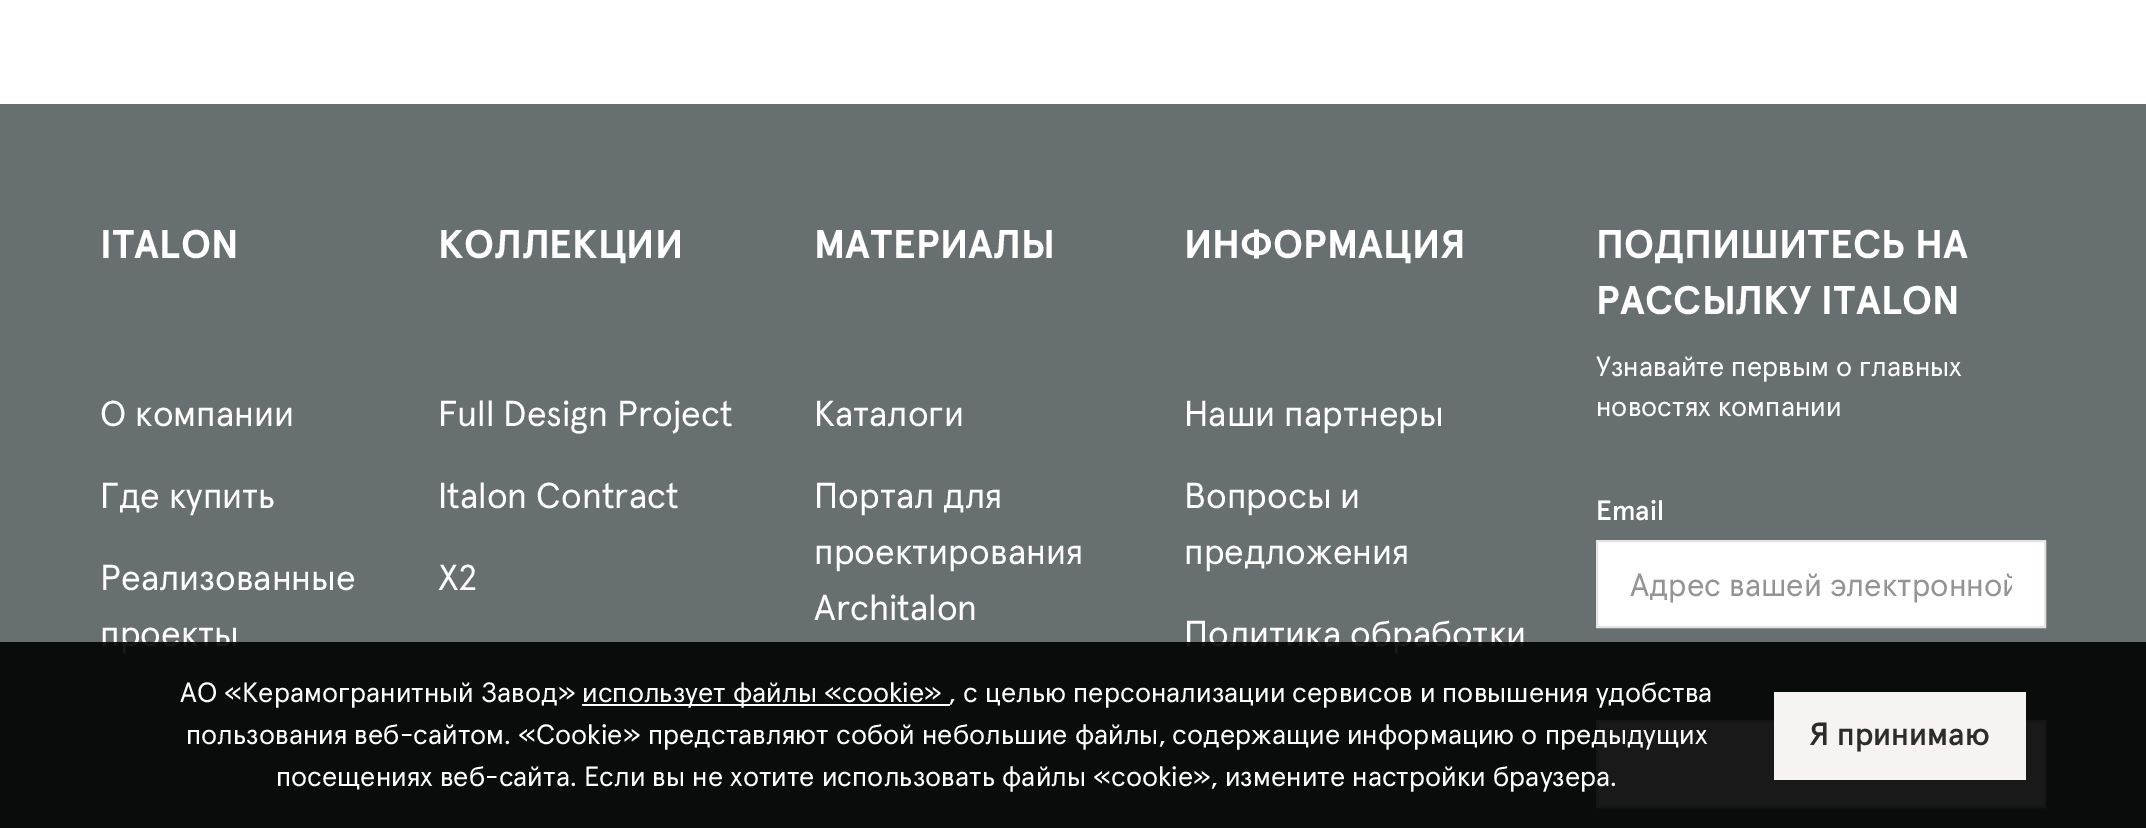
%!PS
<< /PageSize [2146 828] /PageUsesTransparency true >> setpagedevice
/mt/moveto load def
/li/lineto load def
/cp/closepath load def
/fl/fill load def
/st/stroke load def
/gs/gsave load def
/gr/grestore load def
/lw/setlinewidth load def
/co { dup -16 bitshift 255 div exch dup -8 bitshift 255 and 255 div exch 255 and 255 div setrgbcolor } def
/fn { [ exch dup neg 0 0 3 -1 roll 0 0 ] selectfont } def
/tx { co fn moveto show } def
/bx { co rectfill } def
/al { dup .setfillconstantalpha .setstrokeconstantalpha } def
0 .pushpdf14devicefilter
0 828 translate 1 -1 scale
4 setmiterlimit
0 0 2146 828 16#FFFFFF bx
0 104 2146 724 16#686F71 bx
16#FFFFFF co
1597 541 mt 2045 541 li 2045 627 li 1597 627 li cp gs fl gr
16#E4E4E4 co
2 lw
st
16#FFFFFF co
1597 721 mt 2045 721 li 2045 807 li 1597 807 li cp gs fl gr
16#E4E4E4 co
st
(ITALON) 100 258 /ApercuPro-Bold 40 16#FFFFFF tx
(О компании) 100 426 /ApercuPro-Regular 36 16#FFFFFF tx
(Где купить) 100 508 /ApercuPro-Regular 36 16#FFFFFF tx
(Реализованные) 100 590 /ApercuPro-Regular 36 16#FFFFFF tx
(проекты) 100 646 /ApercuPro-Regular 36 16#FFFFFF tx
(КОЛЛЕКЦИИ) 438 258 /ApercuPro-Bold 40 16#FFFFFF tx
(Full Design Project) 438 426 /ApercuPro-Regular 36 16#FFFFFF tx
(Italon Contract) 438 508 /ApercuPro-Regular 36 16#FFFFFF tx
(X2) 438 590 /ApercuPro-Regular 36 16#FFFFFF tx
(МАТЕРИАЛЫ) 814 258 /ApercuPro-Bold 40 16#FFFFFF tx
(Каталоги) 814 426 /ApercuPro-Regular 36 16#FFFFFF tx
(Портал для) 814 508 /ApercuPro-Regular 36 16#FFFFFF tx
(проектирования) 814 564 /ApercuPro-Regular 36 16#FFFFFF tx
(Architalon) 814 620 /ApercuPro-Regular 36 16#FFFFFF tx
(ИНФОРМАЦИЯ) 1184 258 /ApercuPro-Bold 40 16#FFFFFF tx
(Наши партнеры) 1184 426 /ApercuPro-Regular 36 16#FFFFFF tx
(Вопросы и) 1184 508 /ApercuPro-Regular 36 16#FFFFFF tx
(предложения) 1184 564 /ApercuPro-Regular 36 16#FFFFFF tx
(Политика обработки) 1184 646 /ApercuPro-Regular 36 16#FFFFFF tx
(ПОДПИШИТЕСЬ НА) 1596 258 /ApercuPro-Bold 40 16#FFFFFF tx
(РАССЫЛКУ ITALON) 1596 314 /ApercuPro-Bold 40 16#FFFFFF tx
(Узнавайте первым о главных) 1596 376 /ApercuPro-Regular 28 16#FFFFFF tx
(новостях компании) 1596 416 /ApercuPro-Regular 28 16#FFFFFF tx
(Email) 1596 520 /ApercuPro-Medium 28 16#FFFFFF tx
gs
1630 564 382 40 rectclip
(Адрес вашей электронной) 1630 596 /ApercuPro-Regular 32 16#949494 tx
gr
0.9 al
0 642 2146 186 16#000000 bx
1 al
(АО «Керамогранитный Завод») 180 702 /ApercuPro-Regular 28 16#FFFFFF tx
582 704 368 2 16#FFFFFF bx
(использует файлы «cookie» , с целью персонализации сервисов и повышения удобства) 582 702 /ApercuPro-Regular 28 16#FFFFFF tx
(пользования веб-сайтом. «Cookie» представляют собой небольшие файлы, содержащие информацию о предыдущих) 186 744 /ApercuPro-Regular 28 16#FFFFFF tx
(посещениях веб-сайта. Если вы не хотите использовать файлы «cookie», измените настройки браузера.) 276 786 /ApercuPro-Regular 28 16#FFFFFF tx
1774 692 252 88 16#F7F3F2 bx
(Я принимаю) 1809 745 /ApercuPro-Medium 32 16#2C2C2C tx
.poppdf14devicefilter showpage
